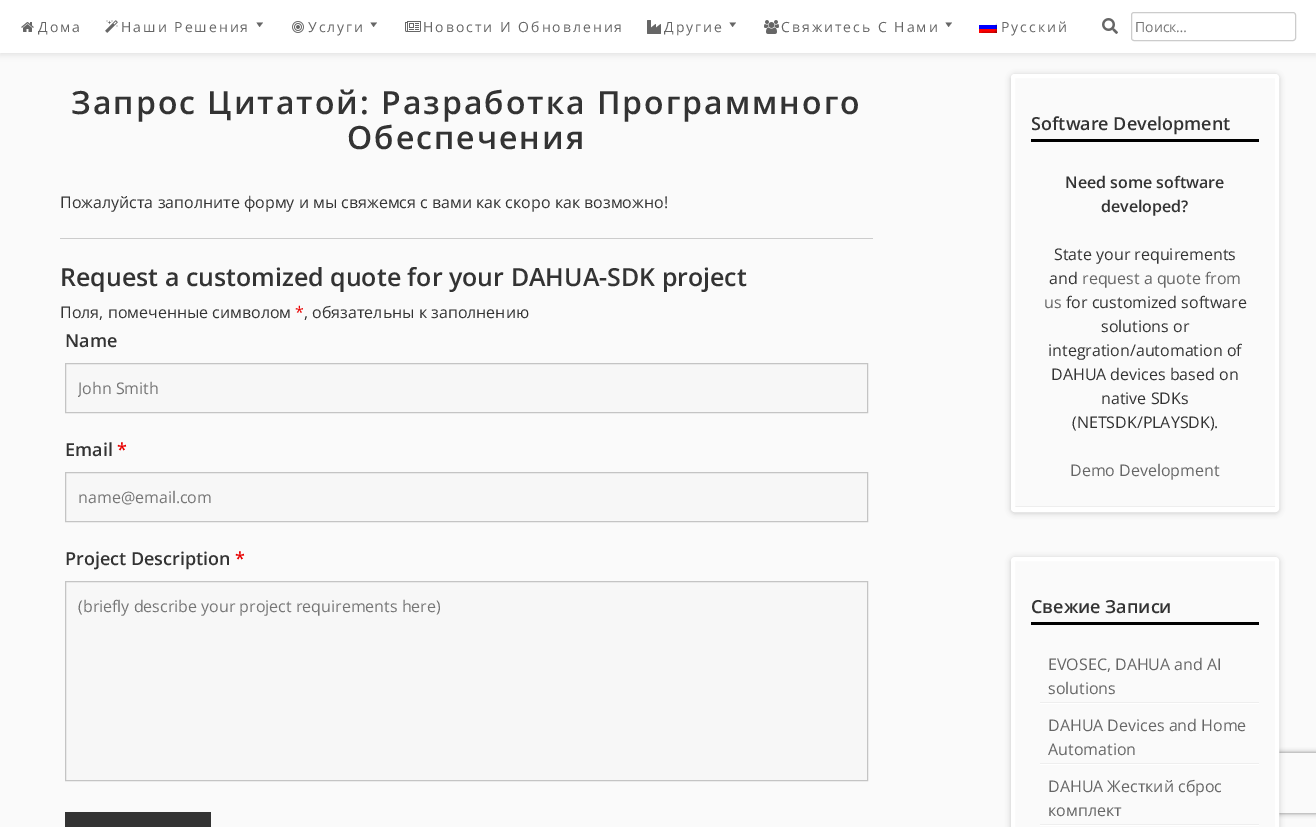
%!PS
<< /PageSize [1316 827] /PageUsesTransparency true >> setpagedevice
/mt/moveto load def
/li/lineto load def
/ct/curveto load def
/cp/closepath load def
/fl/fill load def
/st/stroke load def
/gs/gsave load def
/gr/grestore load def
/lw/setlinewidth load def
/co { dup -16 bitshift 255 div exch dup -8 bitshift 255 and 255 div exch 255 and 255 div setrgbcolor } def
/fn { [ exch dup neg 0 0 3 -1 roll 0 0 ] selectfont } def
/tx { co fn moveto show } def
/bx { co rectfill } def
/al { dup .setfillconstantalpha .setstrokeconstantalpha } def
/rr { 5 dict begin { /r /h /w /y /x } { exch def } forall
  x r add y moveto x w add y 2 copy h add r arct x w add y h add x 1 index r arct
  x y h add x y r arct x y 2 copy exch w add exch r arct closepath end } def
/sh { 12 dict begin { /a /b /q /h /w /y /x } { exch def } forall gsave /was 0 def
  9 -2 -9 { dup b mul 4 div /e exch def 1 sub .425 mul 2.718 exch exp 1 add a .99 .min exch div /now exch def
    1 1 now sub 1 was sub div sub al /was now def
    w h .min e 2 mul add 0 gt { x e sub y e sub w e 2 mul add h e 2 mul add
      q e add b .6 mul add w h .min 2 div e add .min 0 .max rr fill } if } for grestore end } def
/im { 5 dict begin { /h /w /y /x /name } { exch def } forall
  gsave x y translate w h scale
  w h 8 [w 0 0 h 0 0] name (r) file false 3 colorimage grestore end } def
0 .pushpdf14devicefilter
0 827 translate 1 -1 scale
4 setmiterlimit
0 0 1316 827 16#FAFAFA bx
16#000000 co
0 2 1316 53 0 3 .09 sh
0 0 1316 53 16#FFFFFF bx
(media/1.raw) 21 22 13 10 im
(media/2.raw) 105 20 13 13 im
16#666666 co
263 22.5 mt 259.5 27 li 256.5 22.5 li cp fl
(media/3.raw) 292 21 12 12 im
377 22.5 mt 373.5 27 li 370.5 22.5 li cp fl
(media/4.raw) 405 21 16 11 im
(media/5.raw) 647 20 14 14 im
736 22.5 mt 732.5 27 li 729.5 22.5 li cp fl
(media/6.raw) 764 20 15 14 im
952 22.5 mt 948.5 27 li 945.5 22.5 li cp fl
(media/7.raw) 979 23 18 10 im
(media/8.raw) 1102 18 16 16 im
16#CCCCCC co
1131.5 12.5 164 28 2.5 rr st
60 238 813 1 16#CCCCCC bx
16#F7F7F7 co
65.5 363.5 mt 867.5 363.5 li 867.5 412.5 li 65.5 412.5 li cp gs fl gr
16#C4C4C4 co
st
16#F7F7F7 co
65.5 472.5 mt 867.5 472.5 li 867.5 521.5 li 65.5 521.5 li cp gs fl gr
16#C4C4C4 co
st
16#F7F7F7 co
65.5 581.5 mt 867.5 581.5 li 867.5 780.5 li 65.5 780.5 li cp gs fl gr
16#C4C4C4 co
st
65 812 146 15 16#333333 bx
gs
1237 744 mt 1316 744 li 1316 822 li 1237 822 li cp 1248 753 mt 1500 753 li 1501 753 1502 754 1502 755 ct 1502 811 li 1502 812 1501 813 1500 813 ct 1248 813 li 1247 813 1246 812 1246 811 ct 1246 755 li 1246 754 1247 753 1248 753 ct cp eoclip newpath
16#808080 co
1246 753 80 60 2 2.5 1 sh
gr
16#000000 co
1011 75 268 438 4 3 .2 sh
16#FAFAFA co
1011 74 268 438 4 rr fl
(media/9.raw) 1015 506 260 2 im
16#FFFFFF co
4 lw
1013 76 264 434 2 rr st
1031 139 228 3 16#000000 bx
1011 558 268 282 4 3 .2 sh
16#FAFAFA co
1013 559 264 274 2 rr gs fl gr
16#FFFFFF co
st
1031 622 228 3 16#000000 bx
(media/10.raw) 1040 702 219 2 im
(media/10.raw) 1040 763 219 2 im
(media/10.raw) 1040 824 219 2 im
/OpenSans-Regular 14 fn
16#666666 co
38 32 mt 2 0 (Дома) ashow
121 32 mt 2 0 (Наши Решения) ashow
308 32 mt 2 0 (Услуги) ashow
423 32 mt 2 0 (Новости И Обновления) ashow
664 32 mt 2 0 (Другие) ashow
781 32 mt 2 0 (Свяжитесь С Нами) ashow
1001 32 mt 2 0 (Русский) ashow
(Поиск…) 1135 32 /OpenSans-Regular 14 16#757575 tx
/OpenSans-SemiBold 32 fn
16#333333 co
71 114 mt 2 0 (Запрос Цитатой: Разработка Программного) ashow
347 149 mt 2 0 (Обеспечения) ashow
(Пожалуйста заполните форму и мы свяжемся с вами как скоро как возможно!) 60 208 /OpenSans-Regular 16 16#333333 tx
(Request a customized quote for your DAHUA-SDK project) 60 286 /OpenSans-SemiBold 24.95 16#333333 tx
(Поля, помеченные символом) 60 318 /OpenSans-Regular 16 16#333333 tx
(*) 295 318 /OpenSans-Regular 16 16#E80000 tx
(, обязательны к заполнению) 304 318 /OpenSans-Regular 16 16#333333 tx
(Name) 65 347 /OpenSans-SemiBold 18 16#333333 tx
gs
78 377 777 22 rectclip
(John Smith) 78 394 /OpenSans-Regular 16 16#757575 tx
gr
(Email) 65 456 /OpenSans-SemiBold 18 16#333333 tx
(*) 117 456 /OpenSans-SemiBold 18 16#E80000 tx
(name@email.com) 78 503 /OpenSans-Regular 16 16#757575 tx
(Project Description) 65 565 /OpenSans-SemiBold 18 16#333333 tx
(*) 235 565 /OpenSans-SemiBold 18 16#E80000 tx
(\(briefly describe your project requirements here\)) 78 612 /OpenSans-Regular 16 16#757575 tx
(Software Development) 1031 130 /OpenSans-SemiBold 18 16#333333 tx
(Need some software) 1065 188 /OpenSans-SemiBold 16 16#333333 tx
(developed?) 1101 212 /OpenSans-SemiBold 16 16#333333 tx
(State your requirements) 1054 260 /OpenSans-Regular 16 16#333333 tx
(and) 1049 284 /OpenSans-Regular 16 16#333333 tx
(request a quote from) 1082 284 /OpenSans-Regular 16 16#666666 tx
(us) 1044 308 /OpenSans-Regular 16 16#666666 tx
(for customized software) 1066 308 /OpenSans-Regular 16 16#333333 tx
(solutions or) 1101 332 /OpenSans-Regular 16 16#333333 tx
(integration/automation of) 1048 356 /OpenSans-Regular 16 16#333333 tx
(DAHUA devices based on) 1051 380 /OpenSans-Regular 16 16#333333 tx
(native SDKs) 1101 404 /OpenSans-Regular 16 16#333333 tx
(\(NETSDK/PLAYSDK\).) 1072 428 /OpenSans-Regular 16 16#333333 tx
(Demo Development) 1070 476 /OpenSans-Regular 16 16#666666 tx
(Свежие Записи) 1031 613 /OpenSans-SemiBold 18 16#333333 tx
(EVOSEC, DAHUA and AI) 1048 670 /OpenSans-Regular 16 16#666666 tx
(solutions) 1048 694 /OpenSans-Regular 16 16#666666 tx
(DAHUA Devices and Home) 1048 731 /OpenSans-Regular 16 16#666666 tx
(Automation) 1048 755 /OpenSans-Regular 16 16#666666 tx
(DAHUA Жесткий сброс) 1048 792 /OpenSans-Regular 16 16#666666 tx
(комплект) 1048 816 /OpenSans-Regular 16 16#666666 tx
.poppdf14devicefilter showpage
